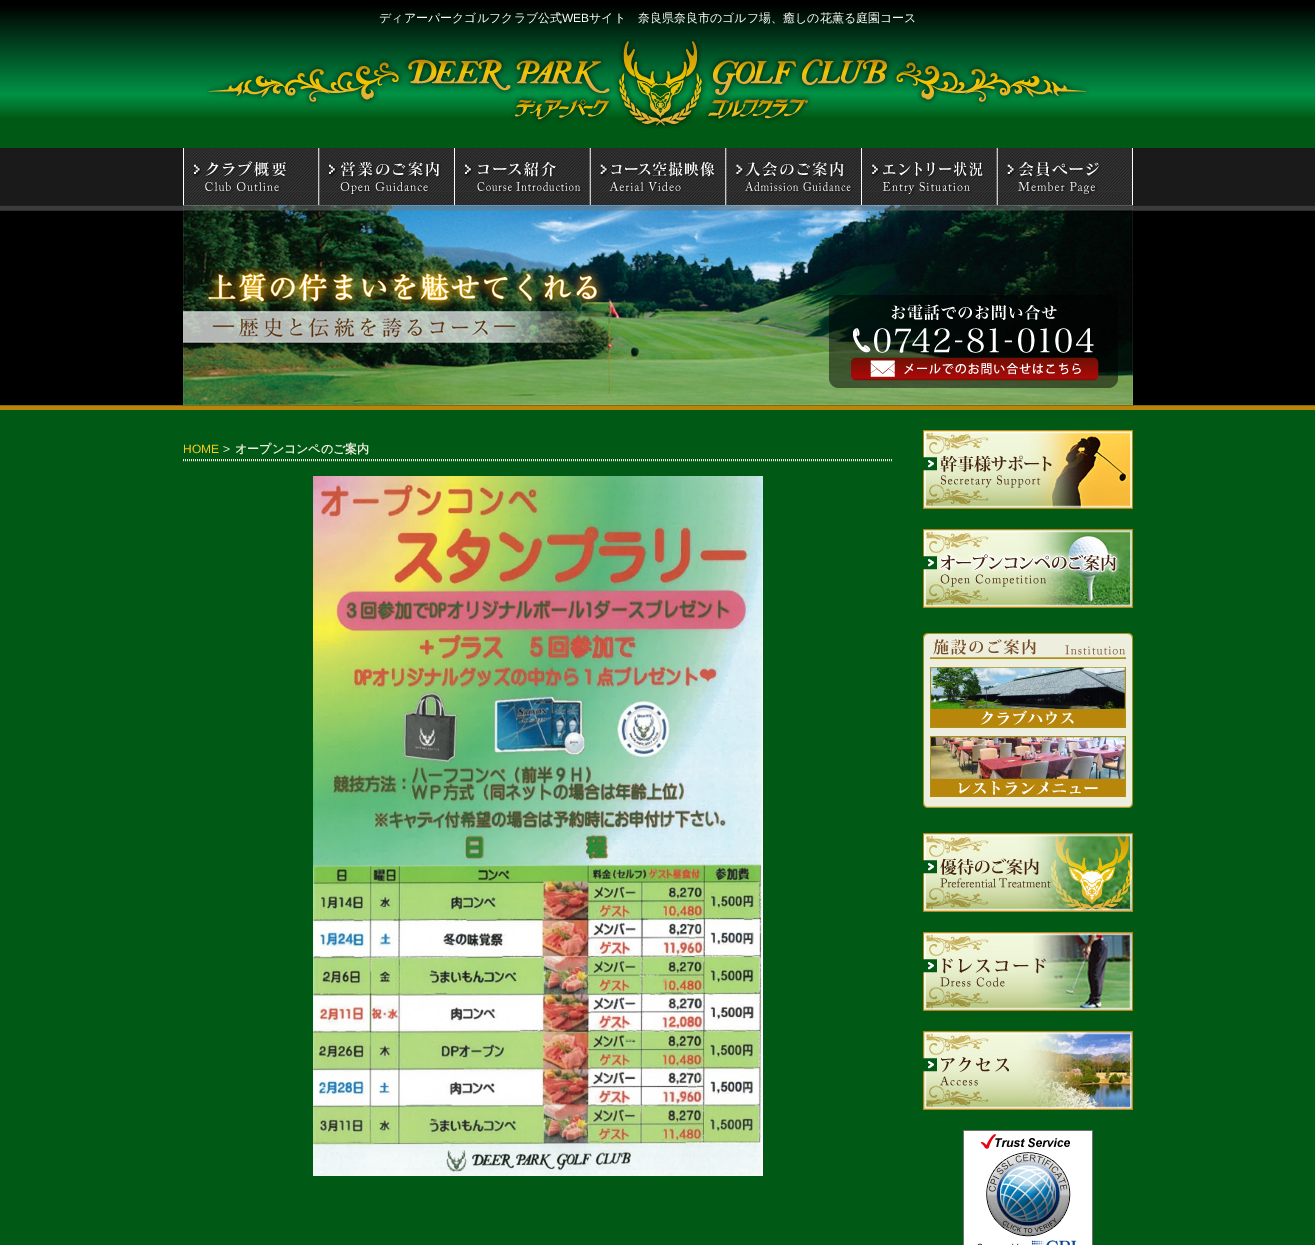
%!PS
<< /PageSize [1315 1245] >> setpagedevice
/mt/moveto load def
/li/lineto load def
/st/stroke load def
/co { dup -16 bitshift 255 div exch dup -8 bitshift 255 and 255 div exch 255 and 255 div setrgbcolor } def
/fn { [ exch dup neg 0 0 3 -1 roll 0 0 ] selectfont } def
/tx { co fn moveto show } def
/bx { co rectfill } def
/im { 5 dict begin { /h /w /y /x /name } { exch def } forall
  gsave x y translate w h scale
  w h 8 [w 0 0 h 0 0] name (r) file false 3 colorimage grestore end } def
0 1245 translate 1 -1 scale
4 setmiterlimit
0 0 1315 1245 16#005915 bx
(media/1.raw) 0 0 1315 117 im
(media/2.raw) 206 39 883 90 im
0 148 1315 57 16#1A1A1A bx
(media/3.raw) 183 148 135 57 im
(media/4.raw) 318 148 137 57 im
(media/5.raw) 455 148 136 57 im
(media/6.raw) 591 148 135 57 im
(media/7.raw) 726 148 136 57 im
(media/8.raw) 862 148 136 57 im
(media/9.raw) 998 148 135 57 im
(media/10.raw) 0 205 1315 205 im
(media/11.raw) 183 205 950 200 im
(media/12.raw) 829 295 289 93 im
16#EEEEDF co
[1 1] 0 setdash
183 460.5 mt 893 460.5 li st
183 459.5 mt 893 459.5 li st
(media/13.raw) 313 476 450 700 im
(media/14.raw) 923 430 210 79 im
(media/15.raw) 923 529 210 79 im
(media/16.raw) 923 659 210 149 im
(media/17.raw) 923 633 210 26 im
(media/18.raw) 930 667 196 61 im
(media/19.raw) 930 736 196 61 im
(media/20.raw) 923 833 210 79 im
(media/21.raw) 923 932 210 79 im
(media/22.raw) 923 1031 210 79 im
(media/23.raw) 963 1130 130 115 im
(ディアーパークゴルフクラブ公式) 379 22 /WenQuanYiZenHei-Medium 12 16#FFFFFF tx
(WEB) 562 22 /LiberationSans-Regular 12 16#FFFFFF tx
(サイト　奈良県奈良市のゴルフ場、癒しの花薫る庭園コース) 589 22 /WenQuanYiZenHei-Medium 12 16#FFFFFF tx
(HOME) 183 453 /LiberationSans-Regular 12 16#FBCC1A tx
(>) 223 453 /LiberationSans-Regular 12 16#EEEEDF tx
(オープンコンペのご案内) 235 453 /WenQuanYiZenHei-Bold 12 16#EEEEDF tx
showpage
